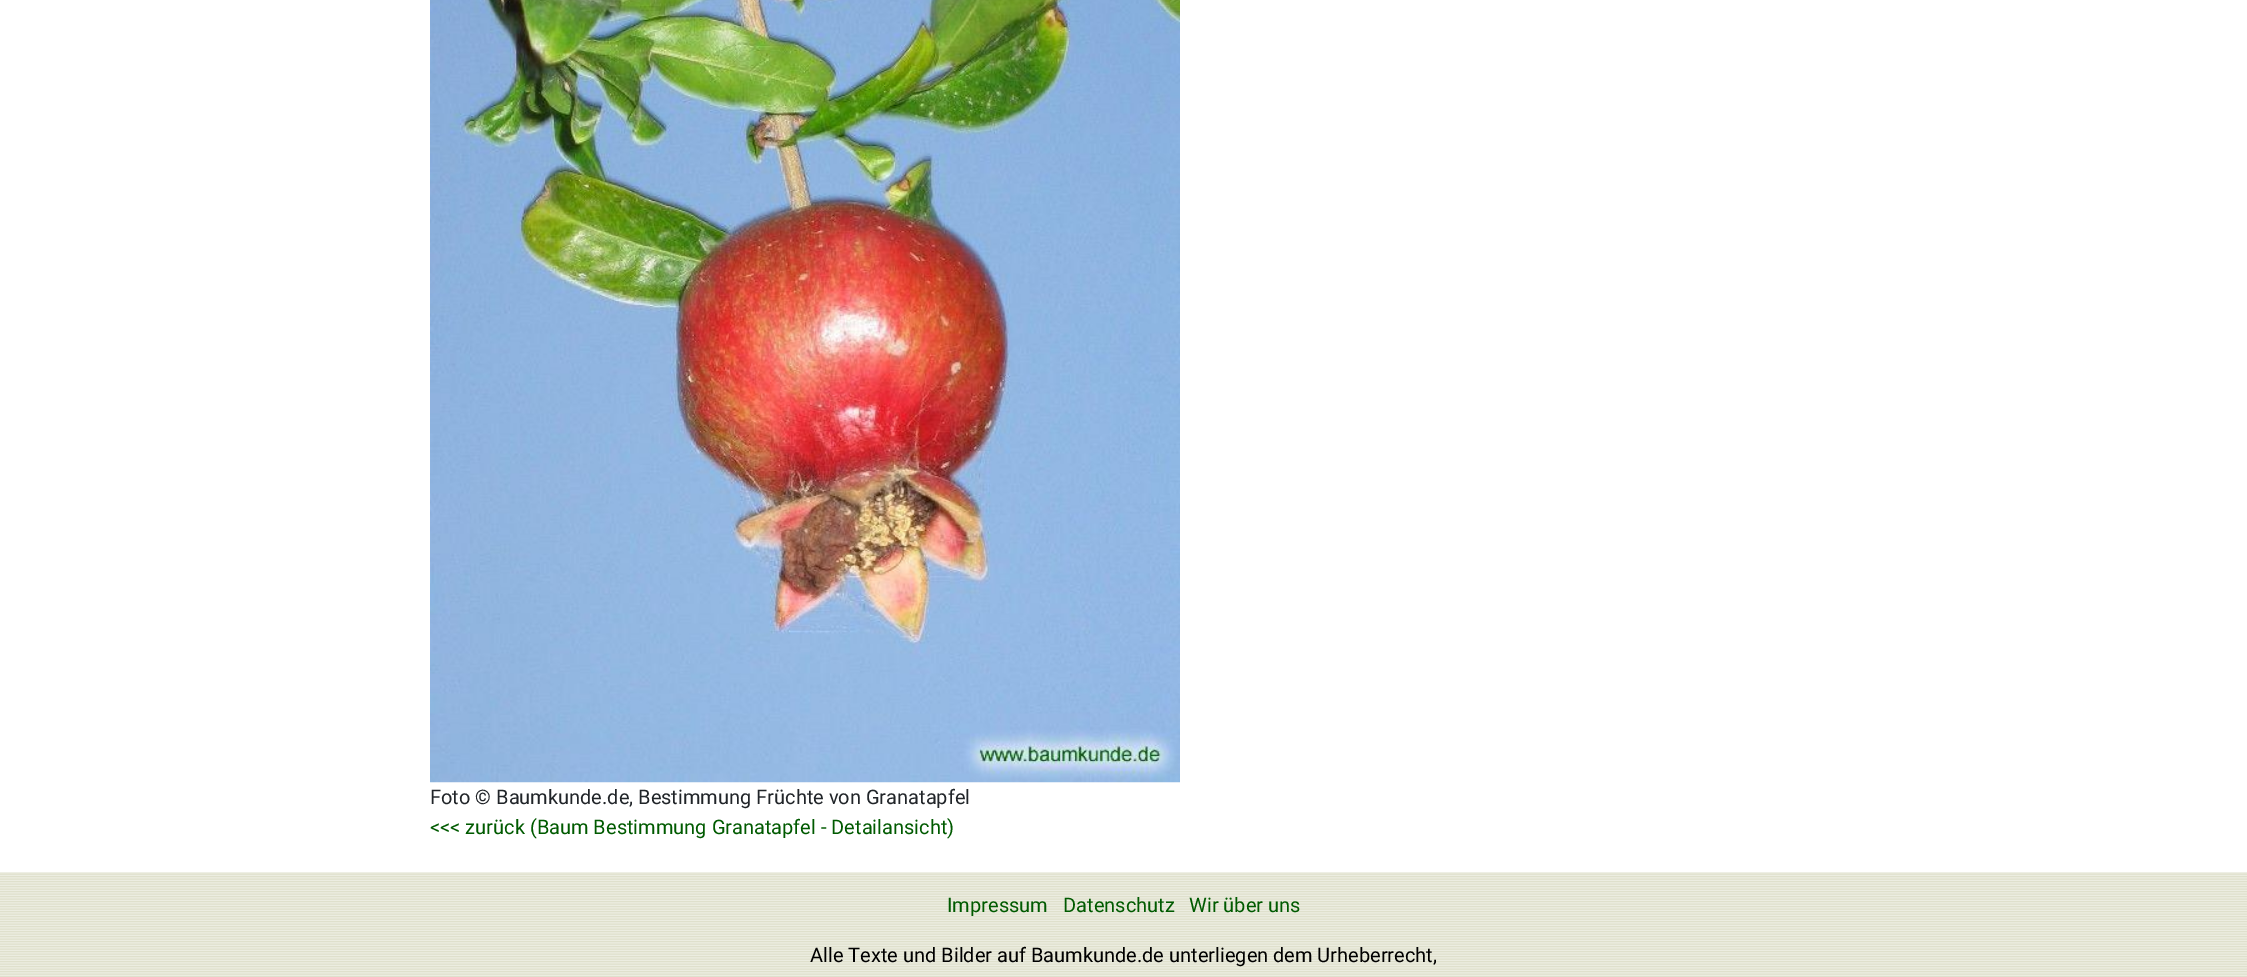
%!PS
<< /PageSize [2247 977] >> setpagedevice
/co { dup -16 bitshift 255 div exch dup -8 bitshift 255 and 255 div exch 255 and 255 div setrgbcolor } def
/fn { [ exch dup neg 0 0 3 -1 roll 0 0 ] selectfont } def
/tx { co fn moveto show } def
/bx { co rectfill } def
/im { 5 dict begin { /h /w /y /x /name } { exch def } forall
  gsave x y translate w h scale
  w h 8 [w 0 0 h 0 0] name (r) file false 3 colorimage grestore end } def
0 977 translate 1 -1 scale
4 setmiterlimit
0 0 2247 977 16#FFFFFF bx
(media/1.raw) 430 0 750 783 im
(media/2.raw) 0 872 2247 105 im
(Foto © Baumkunde.de, Bestimmung Früchte von Granatapfel) 430 804 /Roboto-Regular 20 16#212529 tx
(<<< zurück \(Baum Bestimmung Granatapfel - Detailansicht\)) 430 834 /Roboto-Regular 20 16#005A00 tx
(Impressum) 947 912 /Roboto-Regular 20 16#005A00 tx
(Datenschutz) 1063 912 /Roboto-Regular 20 16#005A00 tx
(Wir über uns) 1189 912 /Roboto-Regular 20 16#005A00 tx
(Alle Texte und Bilder auf Baumkunde.de unterliegen dem Urheberrecht,) 810 962 /Roboto-Regular 20 16#000000 tx
showpage
